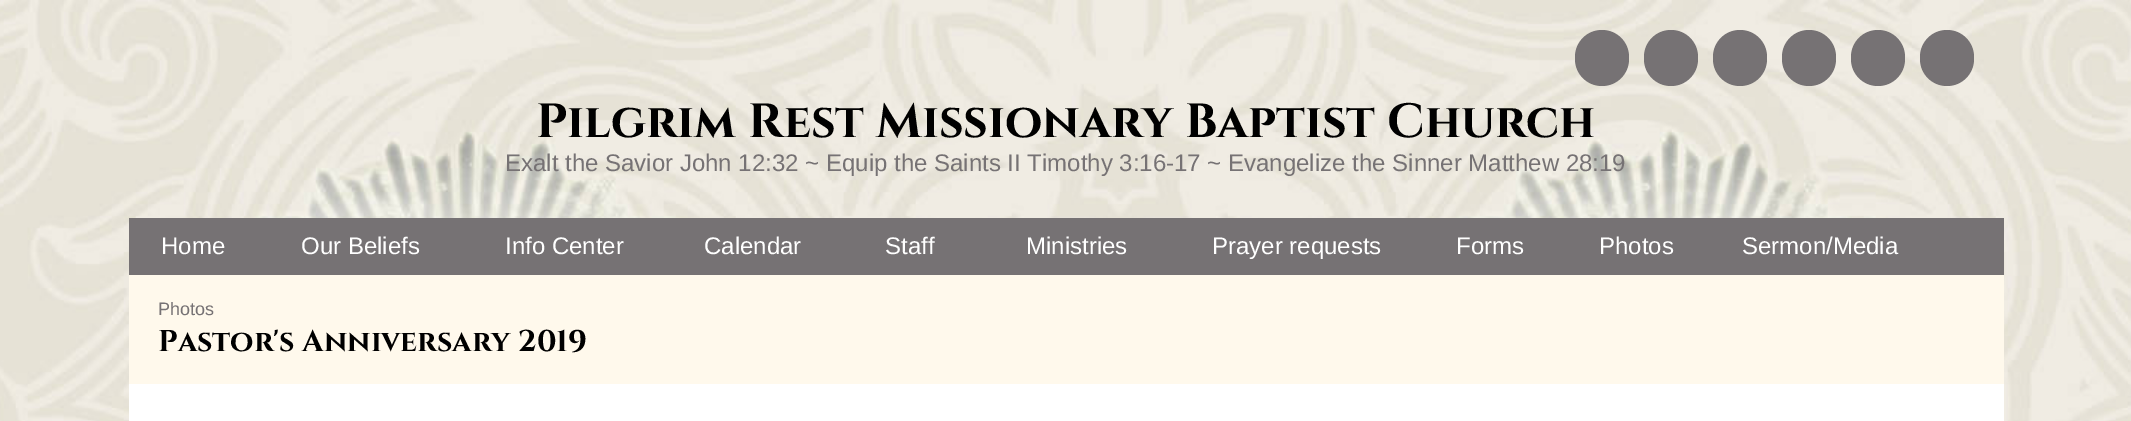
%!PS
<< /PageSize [2131 421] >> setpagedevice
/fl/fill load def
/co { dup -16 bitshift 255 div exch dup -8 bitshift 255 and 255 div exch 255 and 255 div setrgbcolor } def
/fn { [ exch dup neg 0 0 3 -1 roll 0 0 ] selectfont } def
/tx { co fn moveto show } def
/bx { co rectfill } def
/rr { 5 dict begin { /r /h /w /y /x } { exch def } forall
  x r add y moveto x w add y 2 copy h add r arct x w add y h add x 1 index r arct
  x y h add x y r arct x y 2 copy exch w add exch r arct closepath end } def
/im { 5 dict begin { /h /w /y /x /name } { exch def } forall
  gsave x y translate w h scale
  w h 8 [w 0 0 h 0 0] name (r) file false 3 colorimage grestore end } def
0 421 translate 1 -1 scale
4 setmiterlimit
0 0 2131 421 16#FFFFFF bx
(media/1.raw) 0 0 2131 421 im
16#767274 co
1575 30 54 56 27 rr fl
1644 30 54 56 27 rr fl
1713 30 54 56 27 rr fl
1782 30 54 56 27 rr fl
1851 30 54 56 27 rr fl
1920 30 54 56 27 rr fl
129 218 1875 57 16#767274 bx
129 384 1875 37 16#FFFFFF bx
129 275 1875 109 16#FFF9EC bx
(Pilgrim Rest Missionary Baptist Church) 536 137 /Cinzel-Bold 48 16#000000 tx
(Exalt the Savior John 12:32 ~ Equip the Saints II Timothy 3:16-17 ~ Evangelize the Sinner Matthew 28:19) 505 171 /LiberationSans-Regular 24 16#767274 tx
(Home) 161 254 /LiberationSans-Regular 24 16#FFFFFF tx
(Our Beliefs) 301 254 /LiberationSans-Regular 24 16#FFFFFF tx
(Info Center) 505 254 /LiberationSans-Regular 24 16#FFFFFF tx
(Calendar) 704 254 /LiberationSans-Regular 24 16#FFFFFF tx
(Staff) 885 254 /LiberationSans-Regular 24 16#FFFFFF tx
(Ministries) 1026 254 /LiberationSans-Regular 24 16#FFFFFF tx
(Prayer requests) 1212 254 /LiberationSans-Regular 24 16#FFFFFF tx
(Forms) 1456 254 /LiberationSans-Regular 24 16#FFFFFF tx
(Photos) 1599 254 /LiberationSans-Regular 24 16#FFFFFF tx
(Sermon/Media) 1742 254 /LiberationSans-Regular 24 16#FFFFFF tx
(Photos) 158 315 /LiberationSans-Regular 18 16#767274 tx
(Pastor's Anniversary 2019) 158 351 /Cinzel-Bold 30 16#000000 tx
showpage
